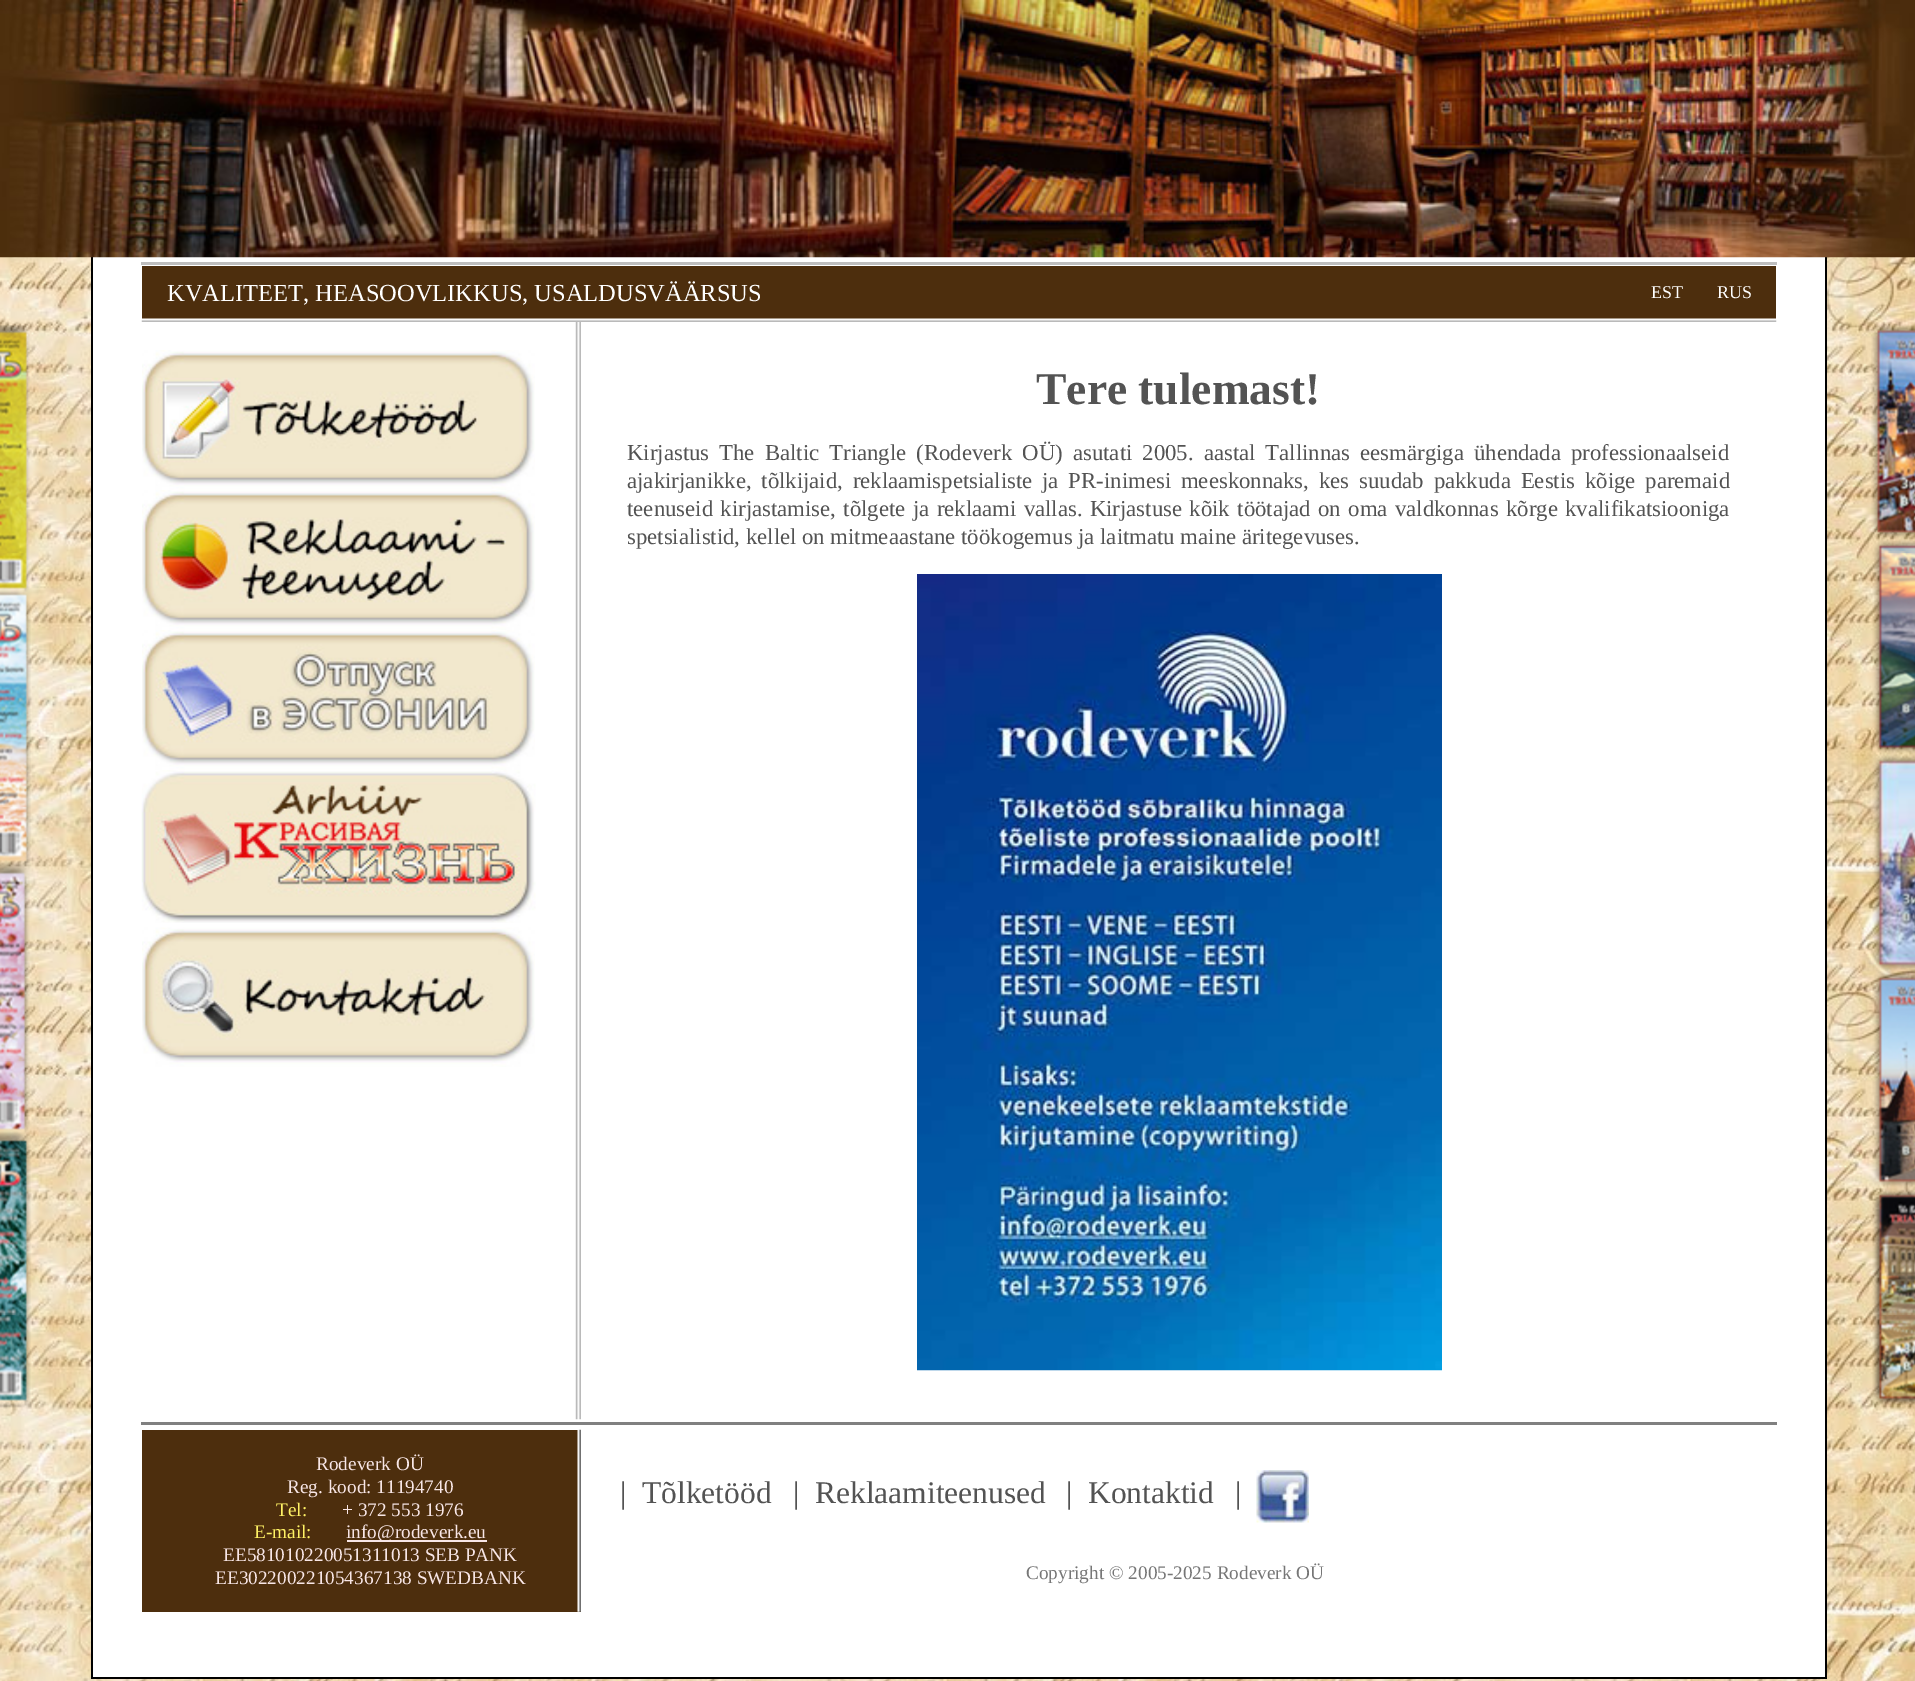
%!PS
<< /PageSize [1915 1681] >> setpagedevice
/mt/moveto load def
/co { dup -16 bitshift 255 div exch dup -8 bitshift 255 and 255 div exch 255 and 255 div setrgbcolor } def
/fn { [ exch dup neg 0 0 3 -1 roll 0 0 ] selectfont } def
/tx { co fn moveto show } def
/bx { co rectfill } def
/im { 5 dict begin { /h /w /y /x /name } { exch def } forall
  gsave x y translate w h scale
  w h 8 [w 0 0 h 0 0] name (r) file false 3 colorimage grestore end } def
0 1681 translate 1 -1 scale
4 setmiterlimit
0 0 1915 1681 16#FFFFFF bx
(media/1.raw) 0 257 1915 1424 im
93 257 1732 1420 16#FFFFFF bx
1825 257 2 1421 16#000000 bx
91 1677 1736 2 16#000000 bx
91 257 2 1421 16#000000 bx
(media/2.raw) 0 0 1915 258 im
(media/3.raw) 0 325 31 1083 im
141 262 1636 3 16#BEBEBE bx
142 266 1634 53 16#4D2E0D bx
(media/4.raw) 141 318 1636 4 im
(media/5.raw) 142 350 393 140 im
(media/6.raw) 142 490 393 140 im
(media/7.raw) 142 630 393 140 im
(media/8.raw) 141 770 395 153 im
(media/9.raw) 142 927 393 140 im
(media/10.raw) 575 322 6 1098 im
(media/11.raw) 917 574 525 797 im
141 1422 1636 3 16#808080 bx
142 1430 439 182 16#4D2E0D bx
(media/12.raw) 577 1429 4 183 im
347 1540 140 2 16#F8E6E6 bx
(media/13.raw) 1256 1470 53 53 im
(media/14.raw) 1871 324 44 1081 im
(KVALITEET, HEASOOVLIKKUS, USALDUSVÄÄRSUS) 167 301 /LiberationSerif-Regular 24.5 16#FFFFFF tx
(EST) 1651 298 /LiberationSerif-Regular 18 16#FFFFFF tx
(RUS) 1717 298 /LiberationSerif-Regular 18 16#FFFFFF tx
(Tere tulemast!) 1036 404 /LiberationSerif-Bold 45.5 16#535353 tx
/LiberationSerif-Regular 22.75 fn
627 460 mt 4.4 0 32 (Kirjastus The Baltic Triangle \(Rodeverk OÜ\) asutati 2005. aastal Tallinnas eesmärgiga ühendada professionaalseid) widthshow
627 488 mt 4.25 0 32 (ajakirjanikke, tõlkijaid, reklaamispetsialiste ja PR-inimesi meeskonnaks, kes suudab pakkuda Eestis kõige paremaid) widthshow
627 516 mt 1.75 0 32 (teenuseid kirjastamise, tõlgete ja reklaami vallas. Kirjastuse kõik töötajad on oma valdkonnas kõrge kvalifikatsiooniga) widthshow
(spetsialistid, kellel on mitmeaastane töökogemus ja laitmatu maine äritegevuses.) 627 544 /LiberationSerif-Regular 22.75 16#535353 tx
(Rodeverk OÜ) 316 1470 /LiberationSerif-Regular 19.25 16#F8E6E6 tx
(Reg. kood: 11194740) 287 1493 /LiberationSerif-Regular 19.25 16#F8E6E6 tx
(Tel:) 276 1516 /LiberationSerif-Regular 19.25 16#FFF265 tx
(+ 372 553 1976) 342 1516 /LiberationSerif-Regular 19.25 16#F8E6E6 tx
(E-mail:) 254 1538 /LiberationSerif-Regular 19.25 16#FFF265 tx
(info@rodeverk.eu) 346 1538 /LiberationSerif-Regular 19.25 16#F8E6E6 tx
(EE581010220051311013 SEB PANK) 223 1561 /LiberationSerif-Regular 19.25 16#F8E6E6 tx
(EE302200221054367138 SWEDBANK) 215 1584 /LiberationSerif-Regular 19.25 16#F8E6E6 tx
(|) 620 1503 /LiberationSerif-Regular 31.5 16#535353 tx
(Tõlketööd) 642 1503 /LiberationSerif-Regular 31.5 16#535353 tx
(|) 793 1503 /LiberationSerif-Regular 31.5 16#535353 tx
(Reklaamiteenused) 815 1503 /LiberationSerif-Regular 31.5 16#535353 tx
(|) 1066 1503 /LiberationSerif-Regular 31.5 16#535353 tx
(Kontaktid) 1088 1503 /LiberationSerif-Regular 31.5 16#535353 tx
(|) 1235 1503 /LiberationSerif-Regular 31.5 16#535353 tx
(Copyright © 2005-2025 Rodeverk OÜ) 1026 1579 /LiberationSerif-Regular 19.25 16#767676 tx
showpage
